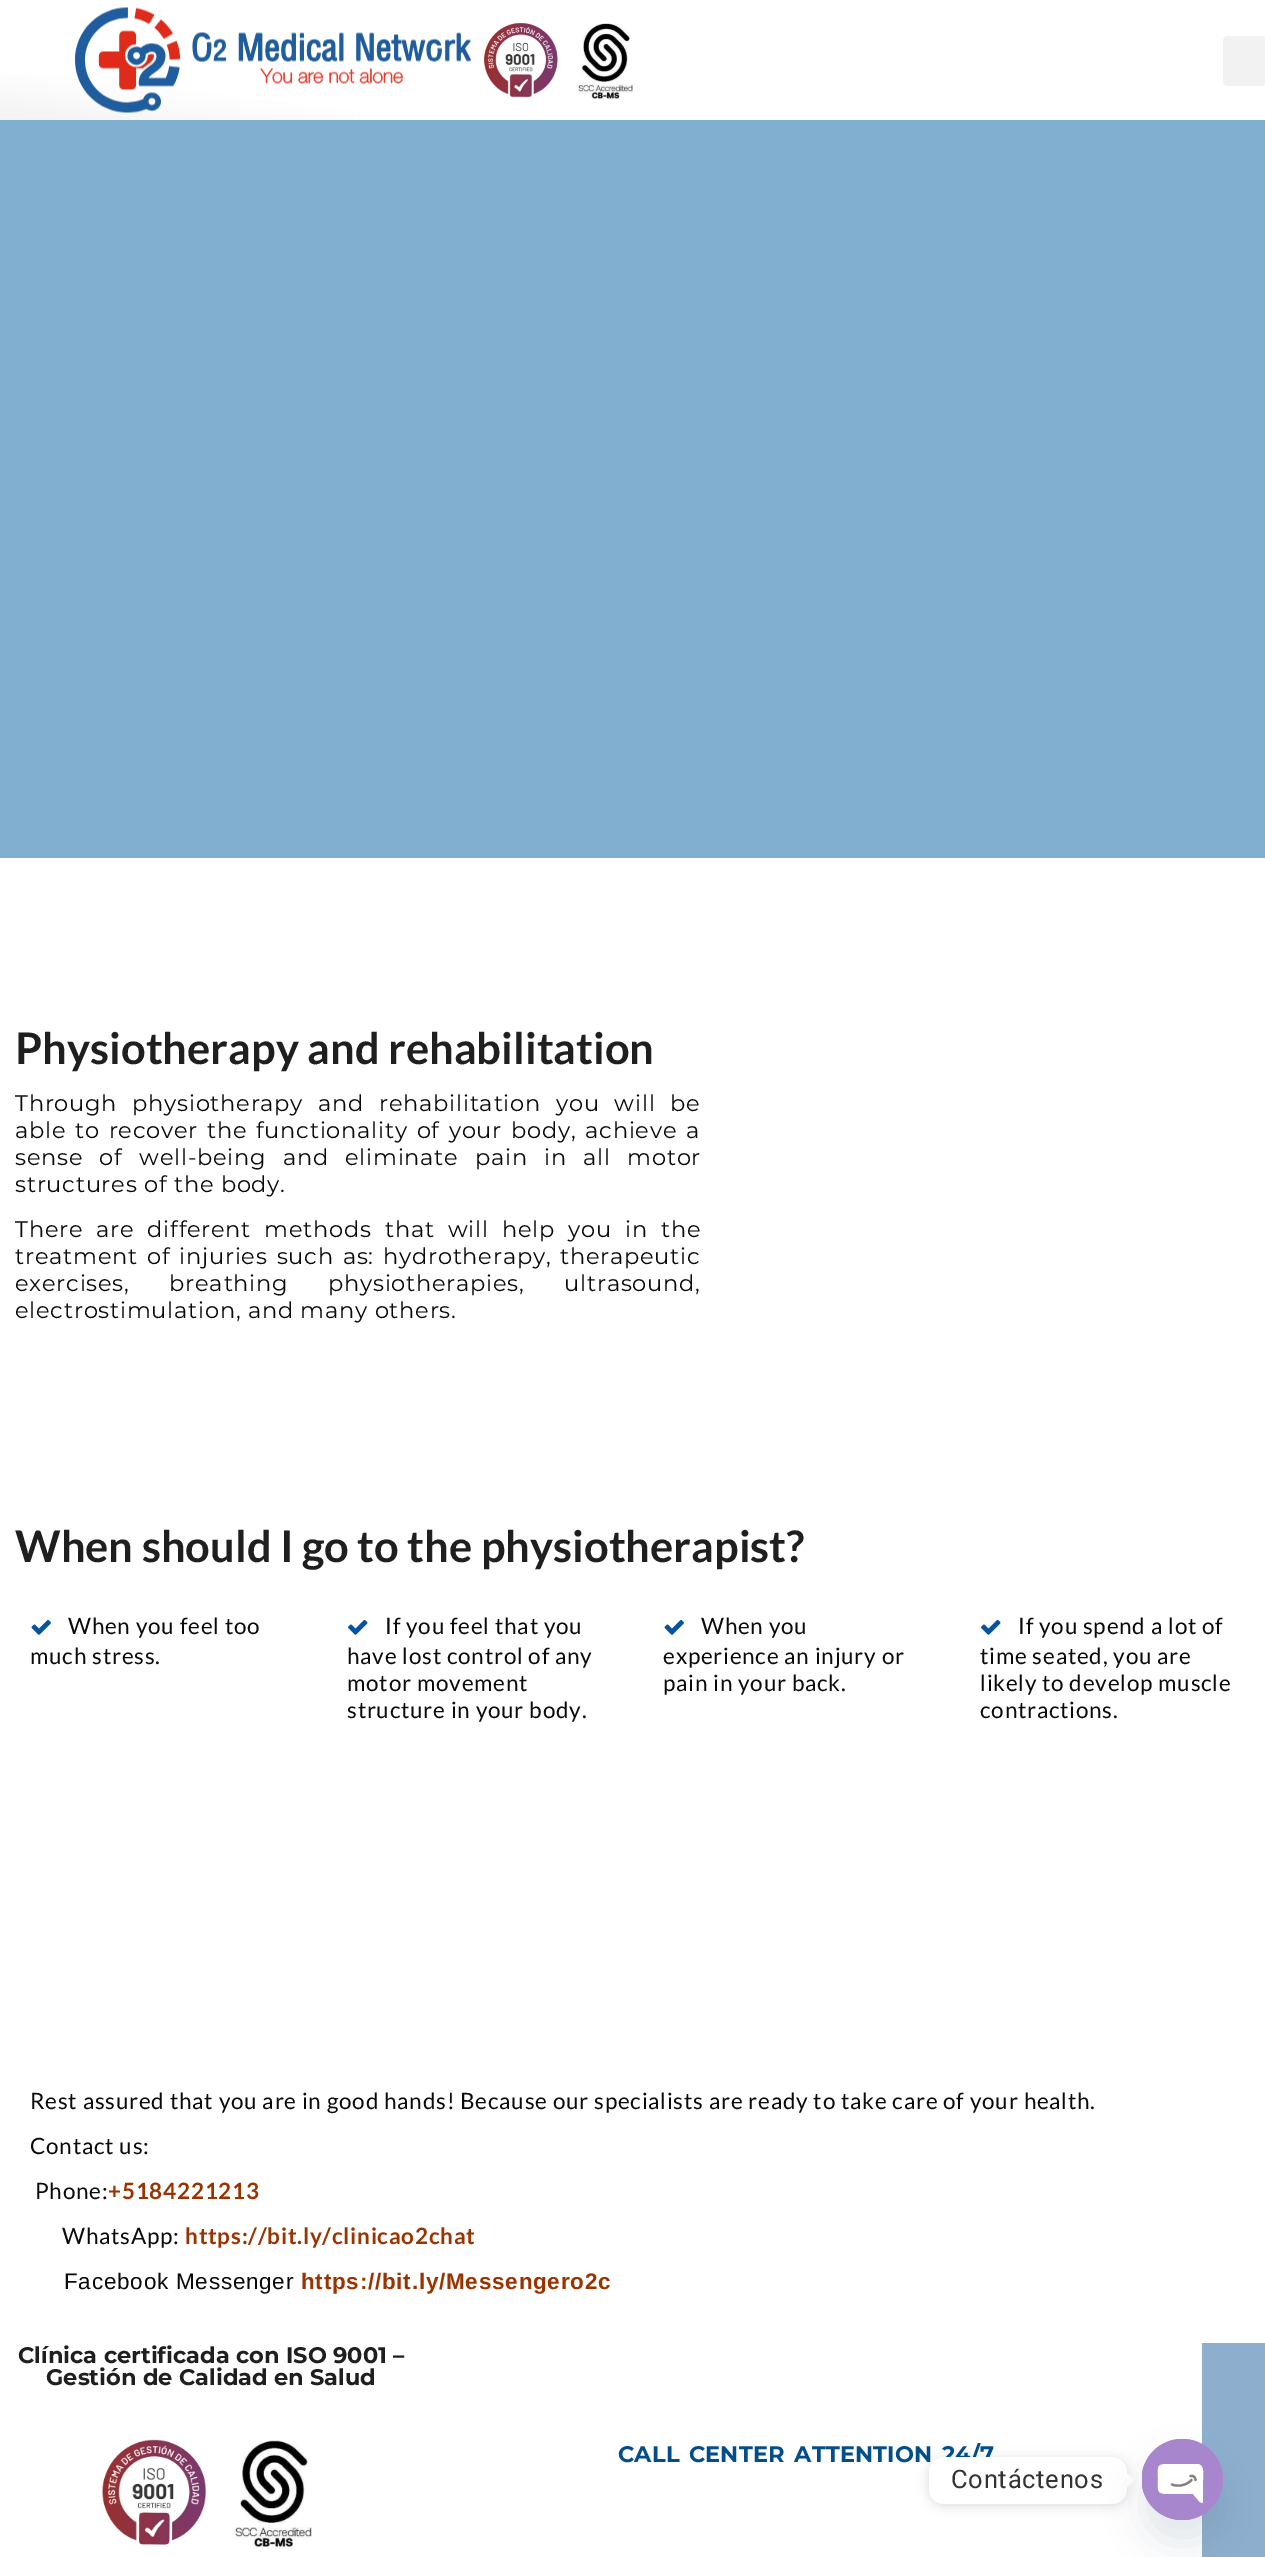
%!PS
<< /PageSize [1265 2557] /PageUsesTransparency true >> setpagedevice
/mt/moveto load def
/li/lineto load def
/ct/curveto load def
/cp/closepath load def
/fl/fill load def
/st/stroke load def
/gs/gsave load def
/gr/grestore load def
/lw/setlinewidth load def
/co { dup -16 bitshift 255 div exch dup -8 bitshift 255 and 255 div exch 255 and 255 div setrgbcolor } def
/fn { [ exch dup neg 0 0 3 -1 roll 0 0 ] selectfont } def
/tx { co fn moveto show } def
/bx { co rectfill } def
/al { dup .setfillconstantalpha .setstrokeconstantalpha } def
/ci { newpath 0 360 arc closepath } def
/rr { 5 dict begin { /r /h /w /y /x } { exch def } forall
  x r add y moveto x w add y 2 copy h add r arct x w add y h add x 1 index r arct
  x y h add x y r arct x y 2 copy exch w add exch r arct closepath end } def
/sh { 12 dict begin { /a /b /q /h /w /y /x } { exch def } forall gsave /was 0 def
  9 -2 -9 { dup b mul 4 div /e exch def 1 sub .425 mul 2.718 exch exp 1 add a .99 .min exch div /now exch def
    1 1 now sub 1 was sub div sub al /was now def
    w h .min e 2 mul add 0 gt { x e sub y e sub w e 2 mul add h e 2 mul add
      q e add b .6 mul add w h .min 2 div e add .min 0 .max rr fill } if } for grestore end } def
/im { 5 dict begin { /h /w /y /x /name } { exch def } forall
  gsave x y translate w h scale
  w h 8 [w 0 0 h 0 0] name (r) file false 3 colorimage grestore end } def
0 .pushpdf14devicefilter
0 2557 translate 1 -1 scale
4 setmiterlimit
0 0 1265 2557 16#FFFFFF bx
gs 0 75 mt 354 75 li 354 120 li 0 120 li cp clip newpath
<< /ShadingType 2 /ColorSpace /DeviceRGB /Coords [650 -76 616 196] /Extend [true true] /Function << /FunctionType 3 /Domain [0 1] /Functions [<< /FunctionType 2 /Domain [0 1] /C0 [1 1 1] /C1 [1 1 1] /N 1 >> << /FunctionType 2 /Domain [0 1] /C0 [1 1 1] /C1 [.953 .953 .953] /N 1 >>] /Bounds [.8] /Encode [0 1 0 1] >> >> shfill gr
(media/1.raw) 75 7 396 106 im
(media/2.raw) 470 23 163 77 im
16#F2F2F2 co
1223 36 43 50 5 rr fl
0 120 1265 738 16#80AFD0 bx
(media/3.raw) 31 1619 20 16 im
(media/4.raw) 348 1619 20 16 im
(media/3.raw) 664 1619 20 16 im
(media/4.raw) 981 1619 20 16 im
(media/5.raw) 102 2439 210 110 im
1202 2343 63 214 16#8EAECE bx
16#000000 co
929 2459 198 46 15 6 .15 sh
(Physiotherapy and rehabilitation) 15 1064 /Lato-Bold 43.5 16#1F1F1F tx
/Montserrat-Regular 22.5 fn
16#0A0A0A co
15 1111 mt 8.25 0 32 .75 0 (Through physiotherapy and rehabilitation you will be) awidthshow
15 1138 mt 2.25 0 32 .75 0 (able to recover the functionality of your body, achieve a) awidthshow
15 1165 mt 9.75 0 32 .75 0 (sense of well-being and eliminate pain in all motor) awidthshow
15 1192 mt .75 0 (structures of the body.) ashow
15 1237 mt 6.5 0 32 .75 0 (There are different methods that will help you in the) awidthshow
15 1264 mt 2.5 0 32 .75 0 (treatment of injuries such as: hydrotherapy, therapeutic) awidthshow
15 1291 mt 33 0 32 .75 0 (exercises, breathing physiotherapies, ultrasound,) awidthshow
15 1318 mt .75 0 (electrostimulation, and many others.) ashow
(When should I go to the physiotherapist?) 15 1562 /Lato-Bold 43.5 16#1F1F1F tx
/Lato-Regular 22.5 fn
16#0A0A0A co
68 1634 mt .75 0 (When you feel too) ashow
30 1664 mt .75 0 (much stress.) ashow
385 1634 mt .75 0 (If you feel that you) ashow
347 1664 mt .75 0 (have lost control of any) ashow
347 1691 mt .75 0 (motor movement) ashow
347 1718 mt .75 0 (structure in your body.) ashow
701 1634 mt .75 0 (When you) ashow
663 1664 mt .75 0 (experience an injury or) ashow
663 1691 mt .75 0 (pain in your back.) ashow
1018 1634 mt .75 0 (If you spend a lot of) ashow
980 1664 mt .75 0 (time seated, you are) ashow
980 1691 mt .75 0 (likely to develop muscle) ashow
980 1718 mt .75 0 (contractions.) ashow
30 2109 mt .75 0 (Rest assured that you are in good hands! Because our specialists are ready to take care of your health.) ashow
30 2154 mt .75 0 (Contact us:) ashow
35 2199 mt .75 0 (Phone:) ashow
/Lato-Bold 22.5 fn
16#993300 co
108 2199 mt .75 0 (+5184221213) ashow
/Lato-Regular 22.5 fn
16#0A0A0A co
62 2244 mt .75 0 (WhatsApp:) ashow
/Lato-Bold 22.5 fn
16#993300 co
185 2244 mt .75 0 (https://bit.ly/clinicao2chat) ashow
/LiberationSans-Regular 22.5 fn
16#0A0A0A co
64 2289 mt .75 0 (Facebook Messenger) ashow
/LiberationSans-Bold 22.5 fn
16#993300 co
301 2289 mt .75 0 (https://bit.ly/Messengero2c) ashow
(Clínica certificada con ISO 9001 –) 18 2363 /Montserrat-Bold 22.5 16#1F1F1F tx
(Gestión de Calidad en Salud) 46 2385 /Montserrat-Bold 22.5 16#1F1F1F tx
16#034E8A co
618 2462 mt 3 0 32 .15 0 (CALL CENTER ATTENTION 24/7) awidthshow
16#FFFFFF co
929 2457 198 47 15 rr fl
/Roboto-Regular 25.5 fn
16#333333 co
951 2488 mt .75 0 (Contáctenos) ashow
16#FFFFFF co
1126.5 2488 mt 1126.5 2473 li 1134 2480 li cp fl
16#49687E co
1142 2463 81 81 40.5 18 .16 sh
16#A886CD co
1182.5 2479.5 40.5 ci fl
gs
1142 2439 81 81 rectclip
1182 2479.5 40.5 ci fl
gr
16#FFFFFF co
1197 2464 mt 1169 2464 li 1156 2464 1158 2466 1158 2479 ct 1158 2491 1156 2494 1169 2494 ct 1193 2494 li 1198 2500 li 1198 2500 1202 2505 1203 2502 ct 1203 2480 li 1203 2475 1205 2464 1197 2464 ct cp fl
16#808080 co
2.2 lw
1 setlinecap
1 setlinejoin
1172 2484.5 mt 1175.5 2486 1184.5 2487.5 1191.5 2480 ct 1195.5 2480 mt 1195.5 2478.5 1194.5 2475 1190.5 2476 ct st
.poppdf14devicefilter showpage
